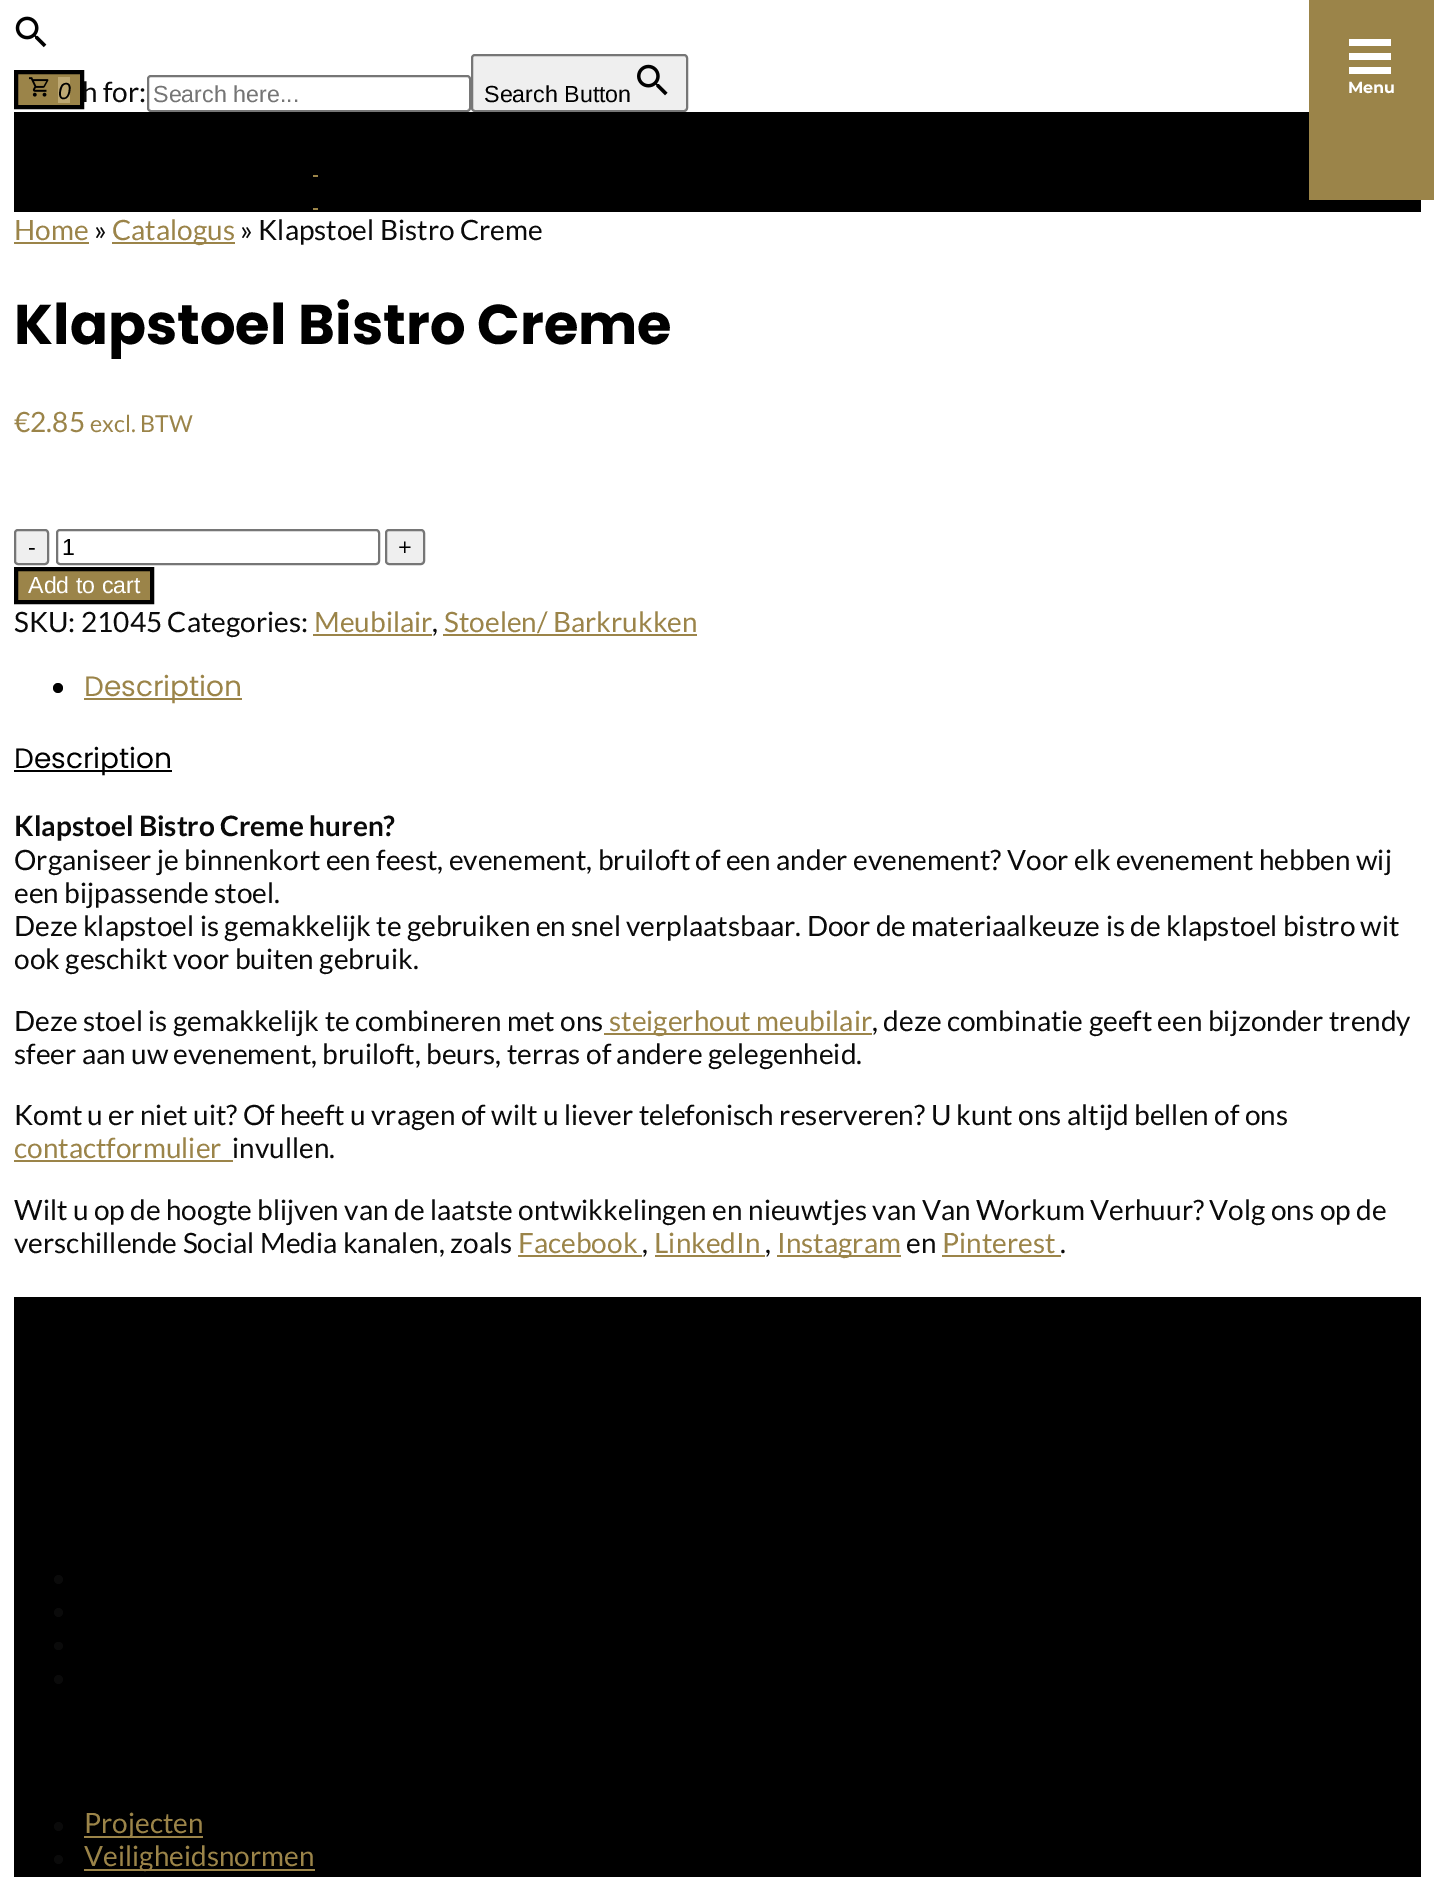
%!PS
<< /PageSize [1434 1877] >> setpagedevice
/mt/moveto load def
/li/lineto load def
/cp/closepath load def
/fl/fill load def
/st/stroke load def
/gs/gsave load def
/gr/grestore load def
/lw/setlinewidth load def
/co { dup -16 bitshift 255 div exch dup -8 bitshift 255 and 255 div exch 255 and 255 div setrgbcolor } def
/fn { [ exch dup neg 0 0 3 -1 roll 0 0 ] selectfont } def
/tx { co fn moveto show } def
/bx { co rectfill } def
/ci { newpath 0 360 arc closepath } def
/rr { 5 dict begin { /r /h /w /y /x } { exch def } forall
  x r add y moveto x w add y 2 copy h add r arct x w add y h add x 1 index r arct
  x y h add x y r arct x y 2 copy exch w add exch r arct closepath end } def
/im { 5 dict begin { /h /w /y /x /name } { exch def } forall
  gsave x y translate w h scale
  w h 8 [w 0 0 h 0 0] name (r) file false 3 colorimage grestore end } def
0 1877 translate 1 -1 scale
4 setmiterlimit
0 0 1434 1877 16#FFFFFF bx
16#9B8449 co
16 72 mt 82 72 li 82 107 li 16 107 li cp gs fl gr
16#000000 co
4 lw
st
(media/1.raw) 28 77 21 20 im
58 77 12 26 16#BDA873 bx
(media/2.raw) 15 16 32 32 im
16#767676 co
2 lw
148 76 322 35 3 rr st
16#EFEFEF co
472 55 215 56 3 rr gs fl gr
16#767676 co
st
(media/3.raw) 637 64 31 32 im
14 112 1407 100 16#000000 bx
1309 0 125 200 16#9B8449 bx
1349 39 42 7 16#FFFFFF bx
1349 53 42 7 16#FFFFFF bx
1349 67 42 7 16#FFFFFF bx
313 175 5 2 16#9B8449 bx
313 208 5 2 16#9B8449 bx
14 242 75 2 16#9B8449 bx
112 242 123 2 16#9B8449 bx
16#EFEFEF co
15 530 33 34 3 rr gs fl gr
16#767676 co
st
57 530 322 34 3 rr st
16#EFEFEF co
386 530 38 34 3 rr gs fl gr
16#767676 co
st
16#9B8449 co
16 569 mt 152 569 li 152 602 li 16 602 li cp gs fl gr
16#000000 co
4 lw
st
313 634 119 2 16#9B8449 bx
443 634 254 2 16#9B8449 bx
16#000000 co
58 688 5 ci fl
84 698 158 2 16#9B8449 bx
14 770 158 2 16#000000 bx
604 1033 268 2 16#9B8449 bx
14 1160 219 2 16#9B8449 bx
518 1255 124 2 16#9B8449 bx
655 1255 110 2 16#9B8449 bx
777 1255 124 2 16#9B8449 bx
942 1255 119 2 16#9B8449 bx
14 1297 1407 580 16#000000 bx
16#0A0A0A co
58.5 1579.5 4.5 ci fl
58.5 1612.5 4.5 ci fl
54 1642 9 8 4 rr fl
58.5 1679.5 4.5 ci fl
58.5 1826.5 4.5 ci fl
84 1836 119 2 16#9B8449 bx
16#0A0A0A co
58.5 1859.5 4.5 ci fl
84 1869 231 2 16#9B8449 bx
(0) 58 99 /LiberationSans-Italic 23.25 16#000000 tx
(h for:) 82 102 /Lato-Regular 28 16#0A0A0A tx
(Search here...) 153 102 /LiberationSans-Regular 23.25 16#757575 tx
(Search Button) 484 102 /LiberationSans-Regular 23.25 16#000000 tx
(Menu) 1348 93 /Montserrat-Bold 16 16#FFFFFF tx
(Home) 14 240 /Lato-Regular 28 16#9B8449 tx
(») 94 240 /Lato-Regular 28 16#0A0A0A tx
(Catalogus) 112 240 /Lato-Regular 28 16#9B8449 tx
(» Klapstoel Bistro Creme) 240 240 /Lato-Regular 28 16#0A0A0A tx
(Klapstoel Bistro Creme) 14 344 /Poppins-Bold 56 16#000000 tx
(€2.85) 14 432 /Lato-Regular 28 16#9B8449 tx
(excl. BTW) 90 432 /Lato-Regular 23.25 16#9B8449 tx
(-) 28 555 /LiberationSans-Regular 23.25 16#000000 tx
(1) 62 555 /LiberationSans-Regular 23.25 16#000000 tx
(+) 398 555 /LiberationSans-Regular 23.25 16#000000 tx
(Add to cart) 28 593 /LiberationSans-Regular 23.25 16#FFFFFF tx
(SKU: 21045 Categories:) 14 632 /Lato-Regular 28 16#0A0A0A tx
(Meubilair) 314 632 /Lato-Regular 28 16#9B8449 tx
(,) 432 632 /Lato-Regular 28 16#0A0A0A tx
(Stoelen/ Barkrukken) 444 632 /Lato-Regular 28 16#9B8449 tx
(Description) 84 696 /Poppins-Regular 28 16#9B8449 tx
(Description) 14 768 /Poppins-Regular 28 16#000000 tx
(Klapstoel Bistro Creme huren?) 14 836 /Lato-Bold 28 16#0A0A0A tx
(Organiseer je binnenkort een feest, evenement, bruiloft of een ander evenement? Voor elk evenement hebben wij) 14 870 /Lato-Regular 28 16#0A0A0A tx
(een bijpassende stoel.) 14 903 /Lato-Regular 28 16#0A0A0A tx
(Deze klapstoel is gemakkelijk te gebruiken en snel verplaatsbaar. Door de materiaalkeuze is de klapstoel bistro wit) 14 936 /Lato-Regular 28 16#0A0A0A tx
(ook geschikt voor buiten gebruik.) 14 969 /Lato-Regular 28 16#0A0A0A tx
(Deze stoel is gemakkelijk te combineren met ons) 14 1031 /Lato-Regular 28 16#0A0A0A tx
(steigerhout meubilair) 609 1031 /Lato-Regular 28 16#9B8449 tx
(, deze combinatie geeft een bijzonder trendy) 872 1031 /Lato-Regular 28 16#0A0A0A tx
(sfeer aan uw evenement, bruiloft, beurs, terras of andere gelegenheid.) 14 1064 /Lato-Regular 28 16#0A0A0A tx
(Komt u er niet uit? Of heeft u vragen of wilt u liever telefonisch reserveren? U kunt ons altijd bellen of ons) 14 1125 /Lato-Regular 28 16#0A0A0A tx
(contactformulier) 14 1158 /Lato-Regular 28 16#9B8449 tx
(invullen.) 232 1158 /Lato-Regular 28 16#0A0A0A tx
(Wilt u op de hoogte blijven van de laatste ontwikkelingen en nieuwtjes van Van Workum Verhuur? Volg ons op de) 14 1220 /Lato-Regular 28 16#0A0A0A tx
(verschillende Social Media kanalen, zoals) 14 1253 /Lato-Regular 28 16#0A0A0A tx
(Facebook) 518 1253 /Lato-Regular 28 16#9B8449 tx
(,) 642 1253 /Lato-Regular 28 16#0A0A0A tx
(LinkedIn) 654 1253 /Lato-Regular 28 16#9B8449 tx
(,) 765 1253 /Lato-Regular 28 16#0A0A0A tx
(Instagram) 777 1253 /Lato-Regular 28 16#9B8449 tx
(en) 906 1253 /Lato-Regular 28 16#0A0A0A tx
(Pinterest) 942 1253 /Lato-Regular 28 16#9B8449 tx
(.) 1060 1253 /Lato-Regular 28 16#0A0A0A tx
(Projecten) 84 1833 /Lato-Regular 28 16#9B8449 tx
(Veiligheidsnormen) 84 1866 /Lato-Regular 28 16#9B8449 tx
showpage
